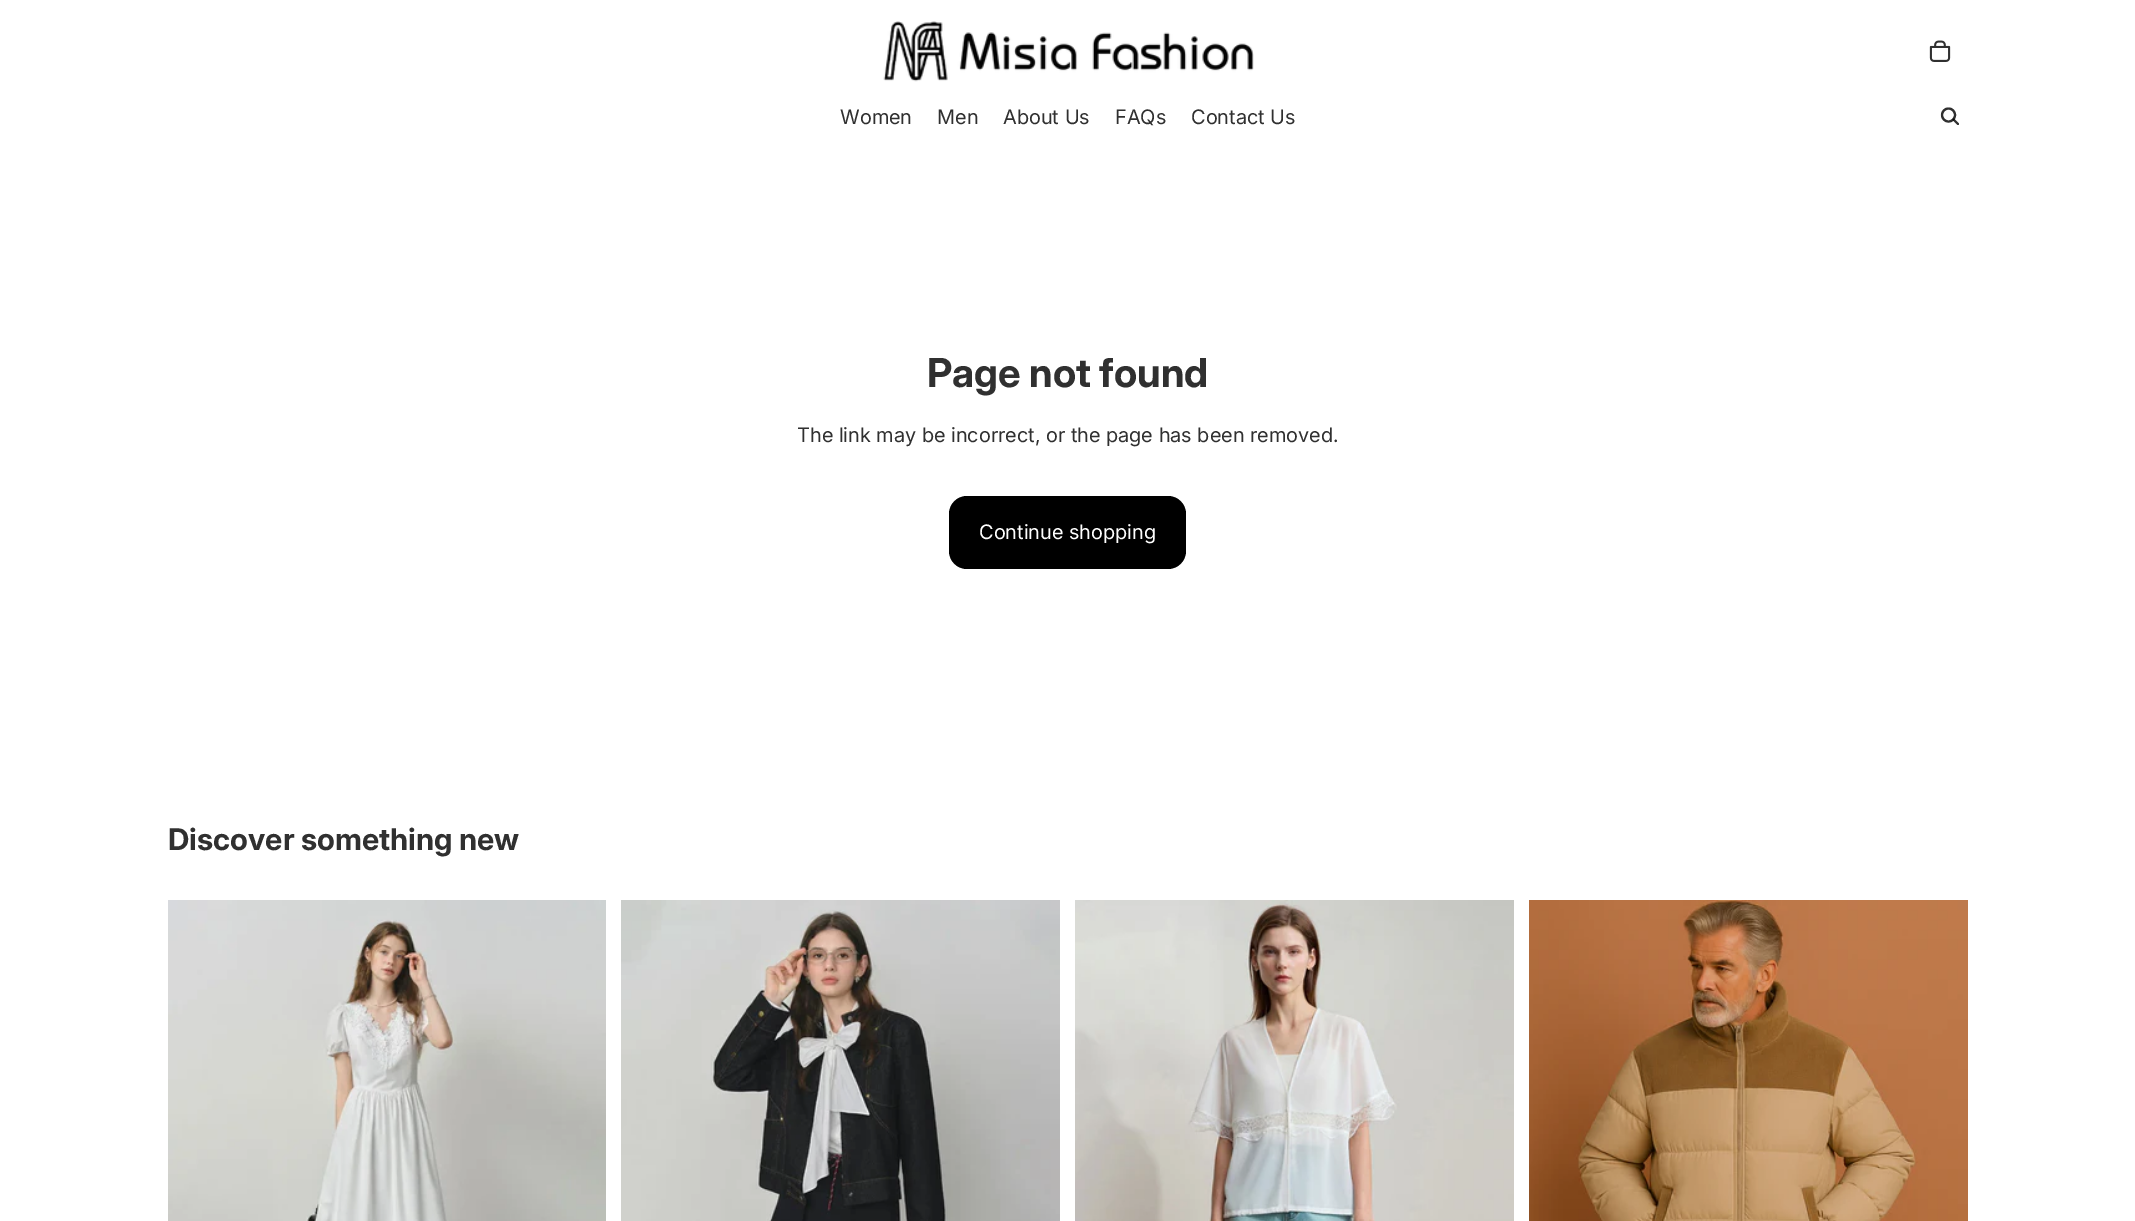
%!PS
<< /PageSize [2135 1221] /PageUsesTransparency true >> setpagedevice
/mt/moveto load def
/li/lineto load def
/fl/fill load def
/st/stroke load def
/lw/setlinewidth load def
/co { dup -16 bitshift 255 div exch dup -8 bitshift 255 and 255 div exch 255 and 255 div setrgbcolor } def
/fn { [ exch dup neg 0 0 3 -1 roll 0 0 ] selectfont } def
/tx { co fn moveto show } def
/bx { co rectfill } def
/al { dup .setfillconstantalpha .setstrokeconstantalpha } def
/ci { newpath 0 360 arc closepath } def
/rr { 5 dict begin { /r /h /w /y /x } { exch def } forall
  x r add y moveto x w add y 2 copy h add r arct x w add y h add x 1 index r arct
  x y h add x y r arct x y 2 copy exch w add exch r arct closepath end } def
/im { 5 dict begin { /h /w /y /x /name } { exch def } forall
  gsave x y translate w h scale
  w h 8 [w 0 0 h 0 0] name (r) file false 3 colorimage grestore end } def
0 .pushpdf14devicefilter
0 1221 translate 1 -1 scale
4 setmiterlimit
0 0 2135 1221 16#FFFFFF bx
(media/1.raw) 883 21 371 61 im
(media/2.raw) 1929 40 22 22 im
16#303030 co
2.1 lw
1948.5 115 6.5 ci st
0.81 al
16#000000 co
1 setlinecap
1 setlinejoin
1953.5 119.5 mt 1958 124 li st
1 al
949 496 237 73 18 rr fl
(media/3.raw) 168 900 438 321 im
(media/4.raw) 621 900 439 321 im
(media/5.raw) 1075 900 439 321 im
(media/6.raw) 1529 900 439 321 im
(Women) 840 124 /Inter-Regular 20 16#303030 tx
(Men) 937 124 /Inter-Regular 20 16#303030 tx
(About Us) 1003 124 /Inter-Regular 20 16#303030 tx
(FAQs) 1115 124 /Inter-Regular 20 16#303030 tx
(Contact Us) 1191 124 /Inter-Regular 20 16#303030 tx
(Page not found) 927 387 /Inter-Bold 40 16#303030 tx
(The link may be incorrect, or the page has been removed.) 797 442 /Inter-Regular 20 16#303030 tx
(Continue shopping) 979 539 /Inter-Regular 20 16#FFFFFF tx
(Discover something new) 168 850 /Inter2-Bold 30 16#303030 tx
.poppdf14devicefilter showpage
